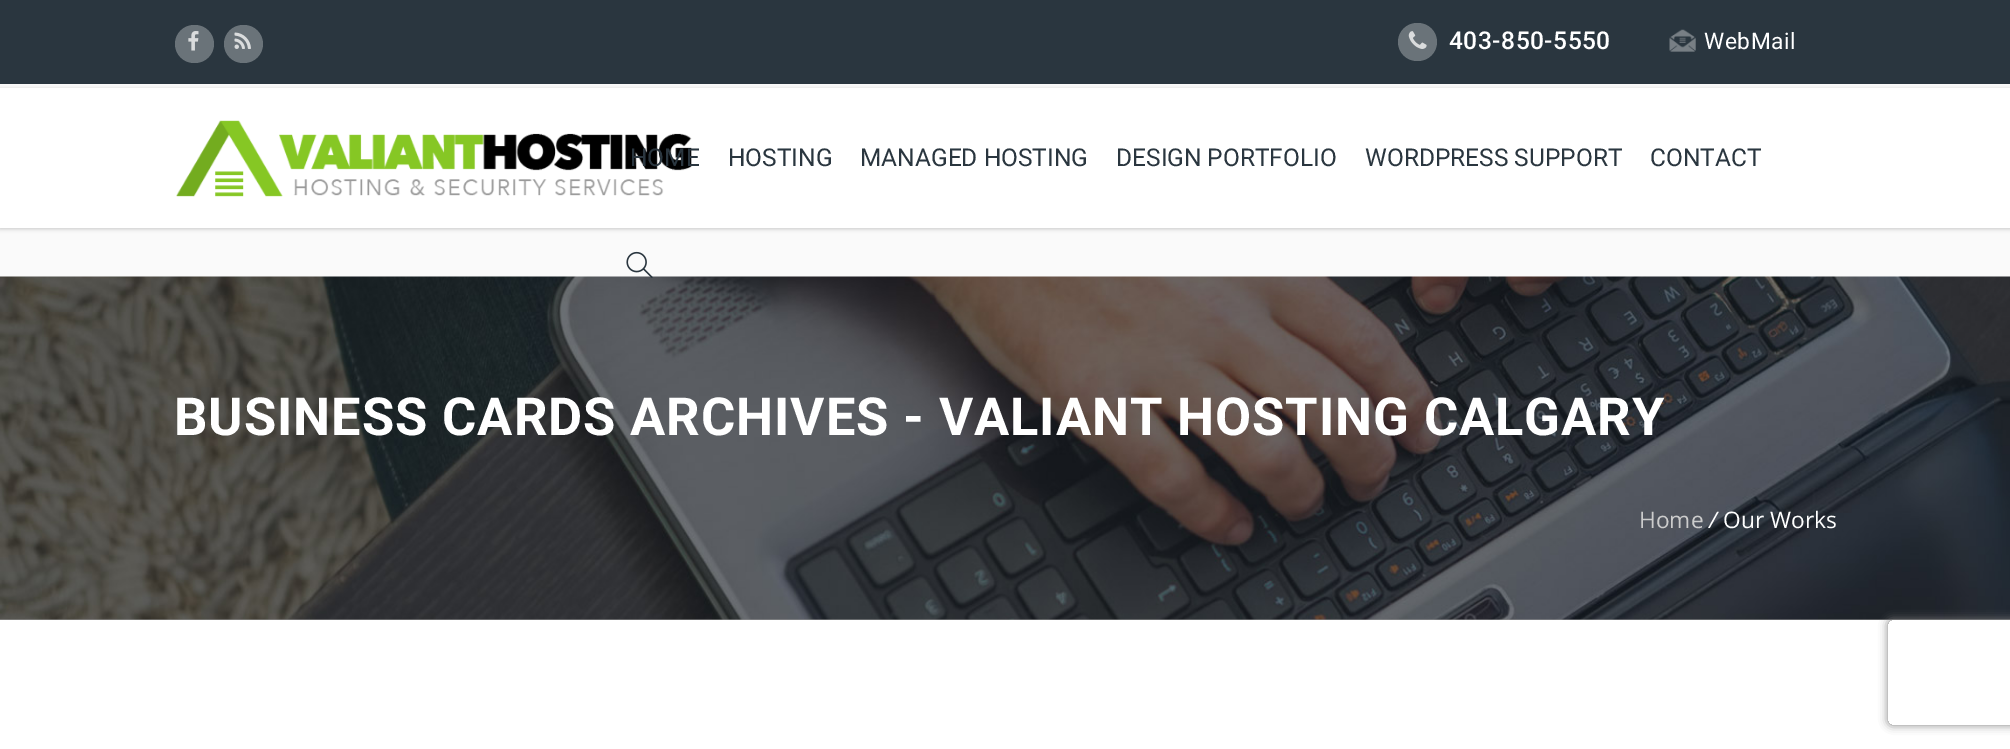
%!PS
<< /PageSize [2010 749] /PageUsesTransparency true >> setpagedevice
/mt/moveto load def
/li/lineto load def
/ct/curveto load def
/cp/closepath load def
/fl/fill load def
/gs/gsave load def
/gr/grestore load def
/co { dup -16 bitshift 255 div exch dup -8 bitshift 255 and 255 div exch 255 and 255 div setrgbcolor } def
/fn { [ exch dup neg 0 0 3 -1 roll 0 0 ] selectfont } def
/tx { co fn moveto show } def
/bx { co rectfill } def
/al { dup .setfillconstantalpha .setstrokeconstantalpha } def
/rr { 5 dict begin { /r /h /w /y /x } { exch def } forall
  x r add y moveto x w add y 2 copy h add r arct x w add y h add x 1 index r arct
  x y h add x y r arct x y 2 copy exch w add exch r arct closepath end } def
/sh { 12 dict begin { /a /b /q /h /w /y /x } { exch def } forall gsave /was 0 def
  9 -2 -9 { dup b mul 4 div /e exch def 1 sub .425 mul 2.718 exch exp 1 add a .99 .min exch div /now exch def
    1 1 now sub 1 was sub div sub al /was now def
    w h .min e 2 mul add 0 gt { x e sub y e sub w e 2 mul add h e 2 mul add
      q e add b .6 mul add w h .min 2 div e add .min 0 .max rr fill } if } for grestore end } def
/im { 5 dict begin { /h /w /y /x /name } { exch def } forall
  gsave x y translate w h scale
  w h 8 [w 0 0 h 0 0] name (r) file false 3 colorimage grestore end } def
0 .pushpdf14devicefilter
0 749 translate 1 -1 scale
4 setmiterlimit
0 0 2010 749 16#FAFAFA bx
0 0 2010 84 16#2A363F bx
16#6A7379 co
175 25 39 38 19 rr fl
(media/1.raw) 188 31 11 20 im
224 25 39 38 19 rr fl
(media/2.raw) 234 32 17 17 im
1398 23 39 38 19 rr fl
(media/3.raw) 1408 31 19 18 im
(media/4.raw) 1669 29 27 23 im
16#000000 co
0 89 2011 140 0 2 .2 sh
0 88 2010 140 16#FFFFFF bx
(media/5.raw) 176 120 516 77 im
0 619 2010 1 16#999999 bx
(media/7.raw) 0 276 2010 344 im
(media/6.raw) 626 251 27 27 im
0 620 2010 129 16#FFFFFF bx
gs
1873 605 mt 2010 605 li 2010 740 li 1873 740 li cp 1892 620 mt 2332 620 li 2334 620 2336 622 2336 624 ct 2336 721 li 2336 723 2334 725 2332 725 ct 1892 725 li 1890 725 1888 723 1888 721 ct 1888 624 li 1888 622 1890 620 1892 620 ct cp eoclip newpath
16#808080 co
1888 620 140 105 4 4.5 1 sh
gr
/Roboto-Medium 24.5 fn
1449 49 mt .5 0 (403-850-5550) ashow
/Roboto-Regular 22.75 fn
1704 49 mt .5 0 (WebMail) ashow
(HOME) 630 166 /Roboto-Regular 24.5 16#2A363F tx
(HOSTING) 728 166 /Roboto-Regular 24.5 16#2A363F tx
(MANAGED HOSTING) 860 166 /Roboto-Regular 24.5 16#2A363F tx
(DESIGN PORTFOLIO) 1116 166 /Roboto-Regular 24.5 16#2A363F tx
(WORDPRESS SUPPORT) 1365 166 /Roboto-Regular 24.5 16#2A363F tx
(CONTACT) 1650 166 /Roboto-Regular 24.5 16#2A363F tx
/Roboto-Bold 52.5 fn
16#FFFFFF co
174 435 mt .9 0 (BUSINESS CARDS ARCHIVES - VALIANT HOSTING CALGARY) ashow
(Home) 1639 528 /OpenSans-Regular 22.75 16#CCCCCC tx
(/) 1709 528 /OpenSans-Italic 22.75 16#FFFFFF tx
(Our Works) 1723 528 /OpenSans-Regular 22.75 16#FFFFFF tx
.poppdf14devicefilter showpage
